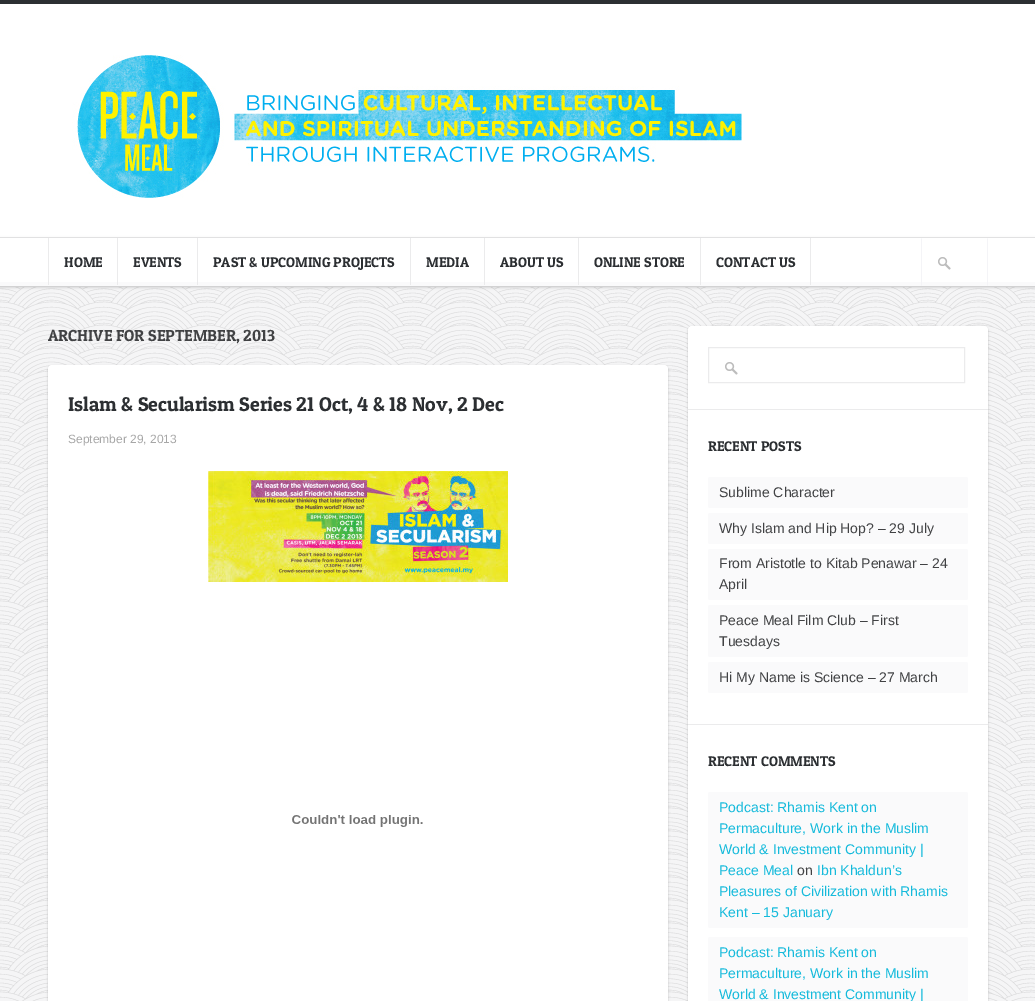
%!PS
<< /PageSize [1035 1001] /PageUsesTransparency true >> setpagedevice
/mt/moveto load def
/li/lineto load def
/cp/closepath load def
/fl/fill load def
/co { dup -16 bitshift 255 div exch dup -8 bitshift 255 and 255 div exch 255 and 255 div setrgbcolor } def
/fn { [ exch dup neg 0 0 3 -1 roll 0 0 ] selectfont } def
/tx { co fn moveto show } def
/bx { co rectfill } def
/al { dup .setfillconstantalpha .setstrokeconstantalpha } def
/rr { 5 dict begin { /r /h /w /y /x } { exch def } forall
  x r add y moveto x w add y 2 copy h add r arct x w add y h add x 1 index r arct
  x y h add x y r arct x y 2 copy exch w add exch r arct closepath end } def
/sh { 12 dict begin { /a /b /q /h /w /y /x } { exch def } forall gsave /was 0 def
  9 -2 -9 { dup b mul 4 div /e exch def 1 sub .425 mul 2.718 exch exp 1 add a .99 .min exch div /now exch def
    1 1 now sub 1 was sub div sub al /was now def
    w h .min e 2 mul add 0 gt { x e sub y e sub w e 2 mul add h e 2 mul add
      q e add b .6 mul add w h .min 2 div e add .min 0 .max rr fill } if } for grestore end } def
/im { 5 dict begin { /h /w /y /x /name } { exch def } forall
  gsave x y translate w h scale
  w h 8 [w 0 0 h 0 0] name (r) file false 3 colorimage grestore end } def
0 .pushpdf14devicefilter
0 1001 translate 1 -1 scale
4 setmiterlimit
0 0 1035 1001 16#FFFFFF bx
(media/1.raw) 0 287 1035 714 im
0 0 1035 4 16#2C2F32 bx
0 237 1035 1 16#EBEBEC bx
(media/2.raw) 72 55 670 143 im
16#000000 co
0 239 1035 48 0 1.5 .2 sh
0 286 1035 1 16#D2D2D3 bx
0 238 1035 44 16#FFFFFF bx
0 282 1035 4 16#FAFAFB bx
117 238 1 47 16#EBEBEC bx
48 238 1 47 16#EBEBEC bx
197 238 1 47 16#EBEBEC bx
410 238 1 47 16#EBEBEC bx
484 238 1 47 16#EBEBEC bx
578 238 1 47 16#EBEBEC bx
700 238 1 47 16#EBEBEC bx
810 238 1 47 16#EBEBEC bx
(media/3.raw) 938 257 13 13 im
16#F4F4F7 co
988 238 mt 988 286 li 987 285 li 987 239 li cp fl
921 286 mt 921 238 li 922 239 li 922 285 li cp fl
16#000000 co
48 366 620 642 4 1 .2 sh
16#FFFFFF co
48 365 620 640 4 rr fl
(media/4.raw) 208 471 300 111 im
(media/5.raw) 292 815 131 12 im
16#000000 co
688 327 300 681 4 1 .2 sh
16#FFFFFF co
688 326 300 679 4 rr fl
688 409 300 1 16#EBEBEC bx
(media/6.raw) 725 362 13 13 im
708.5 347.5 256 35 rectstroke
688 724 300 1 16#EBEBEC bx
16#FAFAFB co
708 477 260 31 2 rr fl
708 513 260 31 2 rr fl
708 549 260 51 2 rr fl
708 605 260 52 2 rr fl
708 662 260 31 2 rr fl
708 792 260 136 2 rr fl
708 937 260 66 2 rr fl
(HOME) 64 267 /PatuaOne-Regular 14 16#2C2F32 tx
(EVENTS) 133 267 /PatuaOne-Regular 14 16#2C2F32 tx
(PAST & UPCOMING PROJECTS) 213 267 /PatuaOne-Regular 14 16#2C2F32 tx
(MEDIA) 426 267 /PatuaOne-Regular 14 16#2C2F32 tx
(ABOUT US) 500 267 /PatuaOne-Regular 14 16#2C2F32 tx
(ONLINE STORE) 594 267 /PatuaOne-Regular 14 16#2C2F32 tx
(CONTACT US) 716 267 /PatuaOne-Regular 14 16#2C2F32 tx
(ARCHIVE FOR SEPTEMBER, 2013) 48 341 /PatuaOne-Regular 16 16#414244 tx
(Islam & Secularism Series 21 Oct, 4 & 18 Nov, 2 Dec) 68 411 /PatuaOne-Regular 20 16#2C2F32 tx
(September 29, 2013) 68 443 /LiberationSans-Regular 12 16#A7A7A7 tx
(RECENT POSTS) 708 451 /PatuaOne-Regular 14 16#2C2F32 tx
(Sublime Character) 719 497 /LiberationSans-Regular 14 16#414244 tx
(Why Islam and Hip Hop? – 29 July) 719 533 /LiberationSans-Regular 14 16#414244 tx
(From Aristotle to Kitab Penawar – 24) 719 568 /LiberationSans-Regular 14 16#414244 tx
(April) 719 589 /LiberationSans-Regular 14 16#414244 tx
(Peace Meal Film Club – First) 719 625 /LiberationSans-Regular 14 16#414244 tx
(Tuesdays) 719 646 /LiberationSans-Regular 14 16#414244 tx
(Hi My Name is Science – 27 March) 719 682 /LiberationSans-Regular 14 16#414244 tx
(RECENT COMMENTS) 708 766 /PatuaOne-Regular 14 16#2C2F32 tx
(Podcast: Rhamis Kent on) 719 812 /LiberationSans-Regular 14 16#15BADB tx
(Permaculture, Work in the Muslim) 719 833 /LiberationSans-Regular 14 16#15BADB tx
(World & Investment Community |) 719 854 /LiberationSans-Regular 14 16#15BADB tx
(Peace Meal) 719 875 /LiberationSans-Regular 14 16#15BADB tx
(on) 797 875 /LiberationSans-Regular 14 16#414244 tx
(Ibn Khaldun’s) 817 875 /LiberationSans-Regular 14 16#15BADB tx
(Pleasures of Civilization with Rhamis) 719 896 /LiberationSans-Regular 14 16#15BADB tx
(Kent – 15 January) 719 917 /LiberationSans-Regular 14 16#15BADB tx
(Podcast: Rhamis Kent on) 719 957 /LiberationSans-Regular 14 16#15BADB tx
(Permaculture, Work in the Muslim) 719 978 /LiberationSans-Regular 14 16#15BADB tx
(World & Investment Community |) 719 999 /LiberationSans-Regular 14 16#15BADB tx
.poppdf14devicefilter showpage
